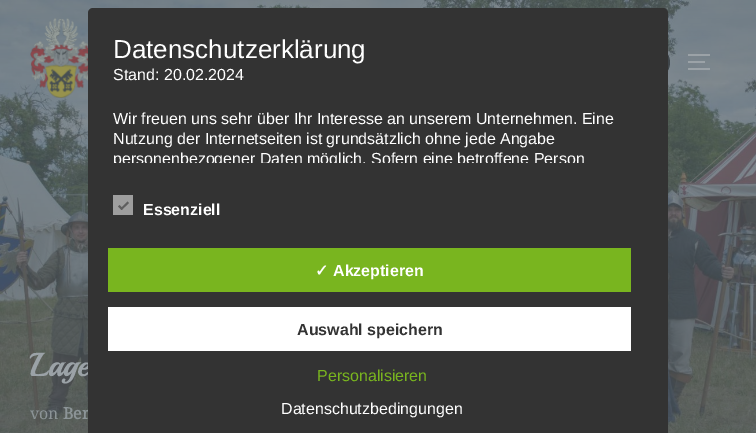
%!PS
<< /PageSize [756 433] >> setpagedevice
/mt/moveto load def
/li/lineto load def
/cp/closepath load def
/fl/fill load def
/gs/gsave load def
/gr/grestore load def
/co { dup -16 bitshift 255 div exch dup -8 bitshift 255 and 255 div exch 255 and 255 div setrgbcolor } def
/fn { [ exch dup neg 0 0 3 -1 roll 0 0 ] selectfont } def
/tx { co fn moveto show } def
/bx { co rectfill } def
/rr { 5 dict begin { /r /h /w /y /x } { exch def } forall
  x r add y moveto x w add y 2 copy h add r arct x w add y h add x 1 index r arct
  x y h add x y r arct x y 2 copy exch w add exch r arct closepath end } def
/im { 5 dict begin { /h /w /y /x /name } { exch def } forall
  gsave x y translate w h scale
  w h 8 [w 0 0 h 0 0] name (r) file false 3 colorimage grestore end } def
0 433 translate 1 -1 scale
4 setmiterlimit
0 0 756 433 16#FFFFFF bx
(media/2.raw) 0 0 756 433 im
(media/1.raw) 30 18 58 80 im
16#3F464B co
636 46 34 33 16.5 rr fl
688 54 22 2 16#9BA2A7 bx
688 61 17 2 16#9BA2A7 bx
688 68 22 2 16#9BA2A7 bx
(Lage) 30 376 /Playball-Bold 32 16#9BA2A7 tx
(von) 30 419 /NotoSerif-Regular 16 16#8C9497 tx
(Ber) 63 419 /NotoSerif-Bold 16 16#8C9497 tx
16#333333 co
88 8 580 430 5 rr fl
(Datenschutzerklärung) 113 58 /LiberationSans-Regular 26 16#FFFFFF tx
(Stand: 20.02.2024) 113 80 /LiberationSans-Regular 16 16#FFFFFF tx
(Wir freuen uns sehr über Ihr Interesse an unserem Unternehmen. Eine) 113 124 /LiberationSans-Regular 16 16#FFFFFF tx
(Nutzung der Internetseiten ist grundsätzlich ohne jede Angabe) 113 144 /LiberationSans-Regular 16 16#FFFFFF tx
gs
113 33 540 130 rectclip
(personenbezogener Daten möglich. Sofern eine betroffene Person) 113 164 /LiberationSans-Regular 16 16#FFFFFF tx
gr
113 195 20 20 16#9E9E9E bx
16#5E5E5E co
127.5 201.5 mt 129 203 li 121.5 210 li 120.5 208.5 li cp fl
119.5 205 mt 123 208.5 li 121.5 210 li 118 206.5 li cp fl
(Essenziell) 143 215 /LiberationSans-Bold 16 16#FFFFFF tx
108 248 523 44 16#79B51F bx
(✓) 315 276 /DejaVuSans-Bold 16 16#FFFFFF tx
(Akzeptieren) 333 276 /LiberationSans-Bold 16 16#FFFFFF tx
108 307 523 44 16#FFFFFF bx
(Auswahl speichern) 297 335 /LiberationSans-Bold 16 16#333333 tx
(Personalisieren) 317 381 /LiberationSans-Regular 16 16#79B51F tx
(Datenschutzbedingungen) 281 414 /LiberationSans-Regular 16 16#FFFFFF tx
showpage
